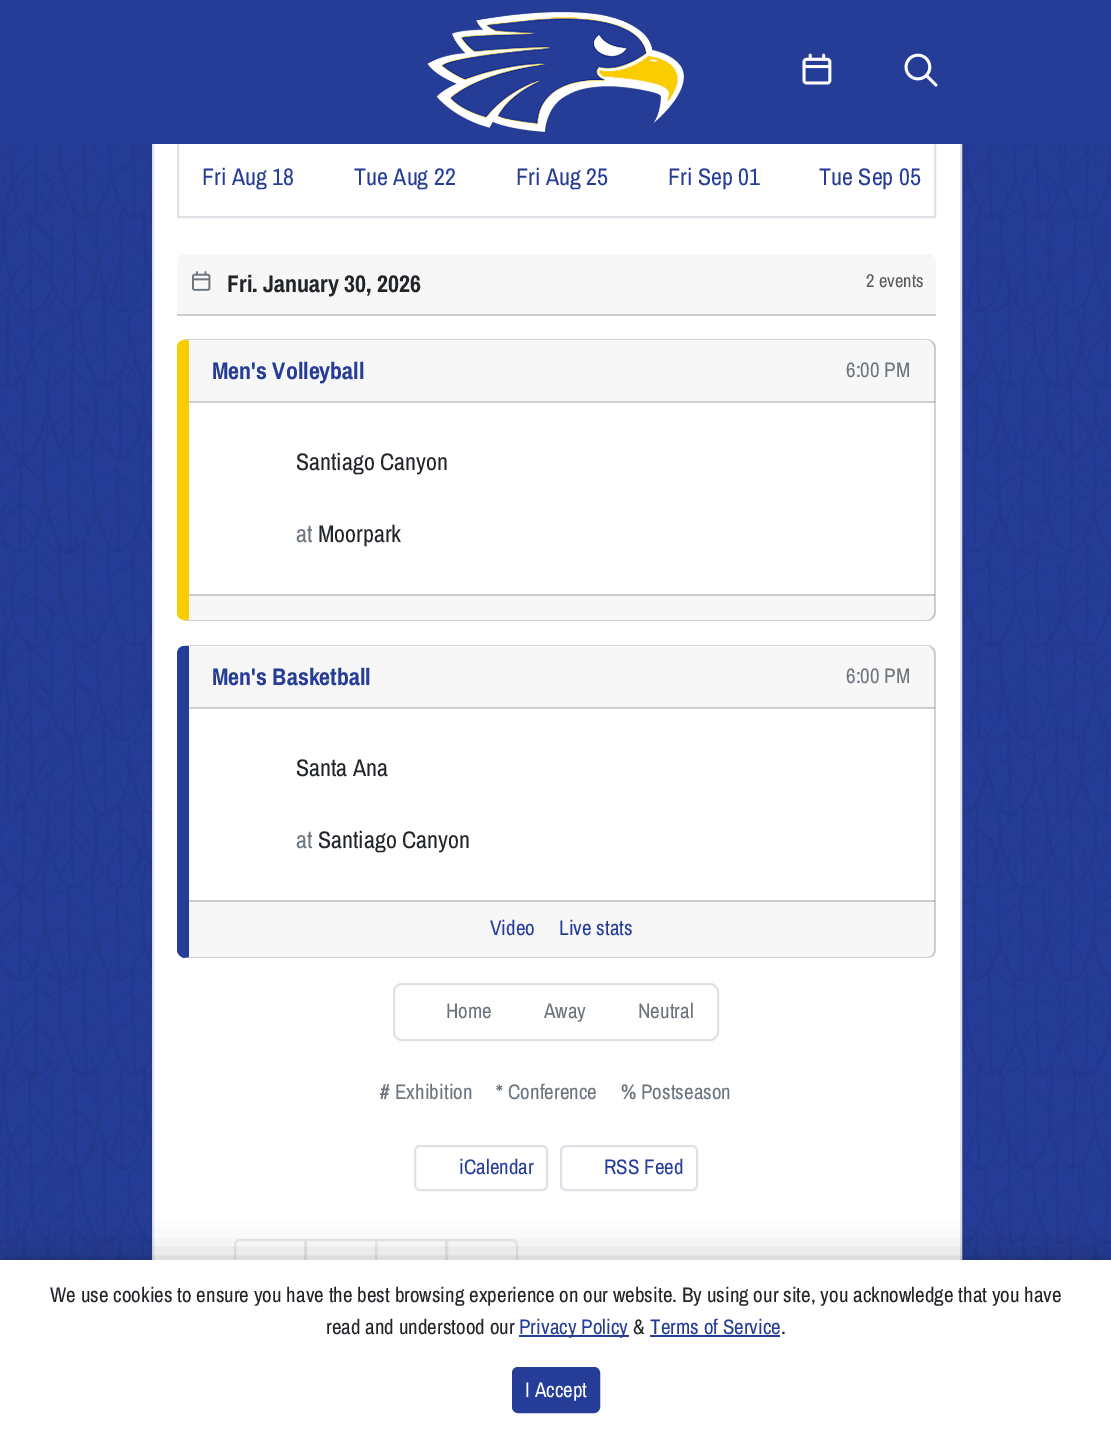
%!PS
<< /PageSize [1111 1432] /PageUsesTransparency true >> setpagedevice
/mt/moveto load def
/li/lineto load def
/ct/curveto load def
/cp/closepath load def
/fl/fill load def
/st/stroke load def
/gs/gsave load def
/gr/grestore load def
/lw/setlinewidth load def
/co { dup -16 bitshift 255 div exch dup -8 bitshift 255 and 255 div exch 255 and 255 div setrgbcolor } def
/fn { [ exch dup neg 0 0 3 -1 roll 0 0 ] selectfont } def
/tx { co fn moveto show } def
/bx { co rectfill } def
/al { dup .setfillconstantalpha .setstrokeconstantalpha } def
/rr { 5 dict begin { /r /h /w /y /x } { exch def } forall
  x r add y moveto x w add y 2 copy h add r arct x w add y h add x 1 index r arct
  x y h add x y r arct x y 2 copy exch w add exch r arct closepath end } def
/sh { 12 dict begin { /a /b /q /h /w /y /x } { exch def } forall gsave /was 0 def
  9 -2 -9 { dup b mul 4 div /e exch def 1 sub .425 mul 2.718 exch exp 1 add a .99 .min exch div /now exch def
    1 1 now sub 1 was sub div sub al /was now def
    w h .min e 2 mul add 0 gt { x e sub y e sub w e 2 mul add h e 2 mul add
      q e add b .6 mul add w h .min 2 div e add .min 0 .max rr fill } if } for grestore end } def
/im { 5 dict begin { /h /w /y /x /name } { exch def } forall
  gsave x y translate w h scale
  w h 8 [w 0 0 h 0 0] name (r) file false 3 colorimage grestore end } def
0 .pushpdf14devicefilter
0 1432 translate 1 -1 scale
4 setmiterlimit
0 0 1111 1432 16#FFFFFF bx
(media/4.raw) 0 144 1111 1116 im
16#000000 co
152 -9 810 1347 0 3 .07 sh
154 144 806 1116 16#FFFFFF bx
16#DEE2E6 co
2 lw
153 -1 808 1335 rectstroke
178 141 757 76 rectstroke
0 0 1111 144 16#263D98 bx
(media/1.raw) 427 12 257 120 im
(media/2.raw) 802 53 30 32 im
(media/3.raw) 904 53 34 34 im
16#F7F7F7 co
185 254 mt 928 254 li 932.5 254 936 257.5 936 262 ct 936 315 li 177 315 li 177 262 li 177 257.5 180.5 254 185 254 ct cp fl
0.18 al
177 314 759 2 16#000000 bx
1 al
(media/5.raw) 192 271 19 20 im
16#D2D2D2 co
186 339 mt 183 340 li 189 340 li 927 340 li 929 340 931 341 932 343 ct 933 342 li 932 340 930 339 927 339 ct cp fl
0.18 al
16#000000 co
936 612 mt 936 348 li 936 346 935 343 933 342 ct 932 343 li 933 344 934 346 934 348 ct 934 612 li 934 614 933 616 932 617 ct 933 618 li 935 617 936 614 936 612 ct cp fl
186 621 mt 927 621 li 930 621 932 620 933 618 ct 932 617 li 931 619 929 620 927 620 ct 189 620 li 183 620 li cp fl
1 al
16#FACD01 co
177 348 mt 177 612 li 177 616 179 619 183 620 ct 189 620 li 189 340 li 183 340 li 179 341 177 344 177 348 ct cp fl
0.03 al
189 341 746 61 16#000000 bx
0.18 al
189 401 746 2 16#000000 bx
0.03 al
189 594 746 26 16#000000 bx
0.18 al
189 594 746 2 16#000000 bx
1 al
16#D2D2D2 co
186 645 mt 183 646 li 189 646 li 927 646 li 929 646 931 647 932 649 ct 933 648 li 932 646 930 645 927 645 ct cp fl
0.18 al
16#000000 co
936 950 mt 936 654 li 936 652 935 649 933 648 ct 932 649 li 933 650 934 652 934 654 ct 934 950 li 934 952 933 954 932 955 ct 933 956 li 935 954 936 952 936 950 ct cp fl
933 956 mt 931 957 929 958 927 958 ct 184 958 li 189 957 li 927 957 li 929 957 931 956 932 955 ct cp fl
1 al
16#263D98 co
177 654 mt 177 950 li 177 953 180 957 184 958 ct 189 957 li 189 646 li 183 646 li 179 647 177 650 177 654 ct cp fl
0.03 al
189 647 746 61 16#000000 bx
0.18 al
189 707 746 2 16#000000 bx
0.03 al
189 900 746 57 16#000000 bx
0.18 al
189 900 746 2 16#000000 bx
1 al
16#DEE2E6 co
394 984 324 56 8 rr st
415 1146 132 44 5 rr st
561 1146 136 44 5 rr st
16#EAEAEA co
240 1240 mt 305 1240 li 305 1285 li 240 1285 li 237 1285 235 1283 235 1280 ct 235 1245 li 235 1242 237 1240 240 1240 ct cp st
306 1240 70 45 rectstroke
376 1240 70 45 rectstroke
16#FEFEFE co
447 1240 mt 512 1240 li 515 1240 517 1242 517 1245 ct 517 1280 li 517 1283 515 1285 512 1285 ct 447 1285 li cp gs fl gr
16#EAEAEA co
st
16#000000 co
0 1260 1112 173 0 18 .25 sh
0 1260 1111 172 16#FFFFFF bx
519 1335 110 2 16#263D98 bx
650 1335 130 2 16#263D98 bx
513 1368 86 44 5 rr gs fl gr
st
(Fri Aug 18) 202 185 /ArchivoNarrow-Regular 24 16#263D98 tx
(Tue Aug 22) 354 185 /ArchivoNarrow-Regular 24 16#263D98 tx
(Fri Aug 25) 516 185 /ArchivoNarrow-Regular 24 16#263D98 tx
(Fri Sep 01) 668 185 /ArchivoNarrow-Regular 24 16#263D98 tx
(Tue Sep 05) 819 185 /ArchivoNarrow-Regular 24 16#263D98 tx
(Fri. January 30, 2026) 227 292 /ArchivoNarrow-Bold 24 16#212529 tx
(2 events) 866 287 /ArchivoNarrow-Regular 18.5 16#575A5D tx
(Men's Volleyball) 212 379 /ArchivoNarrow-Bold 24 16#263D98 tx
(6:00 PM) 846 377 /ArchivoNarrow-Regular 21 16#6C757D tx
(Santiago Canyon) 296 470 /ArchivoNarrow-Regular 24 16#212529 tx
(at) 296 542 /ArchivoNarrow-Regular 24 16#6C757D tx
(Moorpark) 318 542 /ArchivoNarrow-Regular 24 16#212529 tx
(Men's Basketball) 212 685 /ArchivoNarrow-Bold 24 16#263D98 tx
(6:00 PM) 846 683 /ArchivoNarrow-Regular 21 16#6C757D tx
(Santa Ana) 296 776 /ArchivoNarrow-Regular 24 16#212529 tx
(at) 296 848 /ArchivoNarrow-Regular 24 16#6C757D tx
(Santiago Canyon) 318 848 /ArchivoNarrow-Regular 24 16#212529 tx
(Video) 490 935 /ArchivoNarrow-Regular 21 16#263D98 tx
(Live stats) 559 935 /ArchivoNarrow-Regular 21 16#263D98 tx
(Home) 446 1018 /ArchivoNarrow-Regular 21 16#6C757D tx
(Away) 544 1018 /ArchivoNarrow-Regular 21 16#6C757D tx
(Neutral) 638 1018 /ArchivoNarrow-Regular 21 16#6C757D tx
(#) 380 1099 /ArchivoNarrow-Bold 21 16#6C757D tx
(Exhibition) 395 1099 /ArchivoNarrow-Regular 21 16#6C757D tx
(*) 496 1099 /ArchivoNarrow-Bold 21 16#6C757D tx
(Conference) 508 1099 /ArchivoNarrow-Regular 21 16#6C757D tx
(%) 621 1099 /ArchivoNarrow-Bold 21 16#6C757D tx
(Postseason) 641 1099 /ArchivoNarrow-Regular 21 16#6C757D tx
(iCalendar) 459 1174 /ArchivoNarrow-Regular 21 16#263D98 tx
(RSS Feed) 604 1174 /ArchivoNarrow-Regular 21 16#263D98 tx
(We use cookies to ensure you have the best browsing experience on our website. By using our site, you acknowledge that you have) 50 1302 /ArchivoNarrow-Regular 21 16#212529 tx
(read and understood our) 326 1334 /ArchivoNarrow-Regular 21 16#212529 tx
(Privacy Policy) 519 1334 /ArchivoNarrow-Regular 21 16#263D98 tx
(&) 633 1334 /ArchivoNarrow-Regular 21 16#212529 tx
(Terms of Service) 650 1334 /ArchivoNarrow-Regular 21 16#263D98 tx
(.) 781 1334 /ArchivoNarrow-Regular 21 16#212529 tx
(I Accept) 525 1397 /ArchivoNarrow-Regular 21 16#FFFFFF tx
.poppdf14devicefilter showpage
